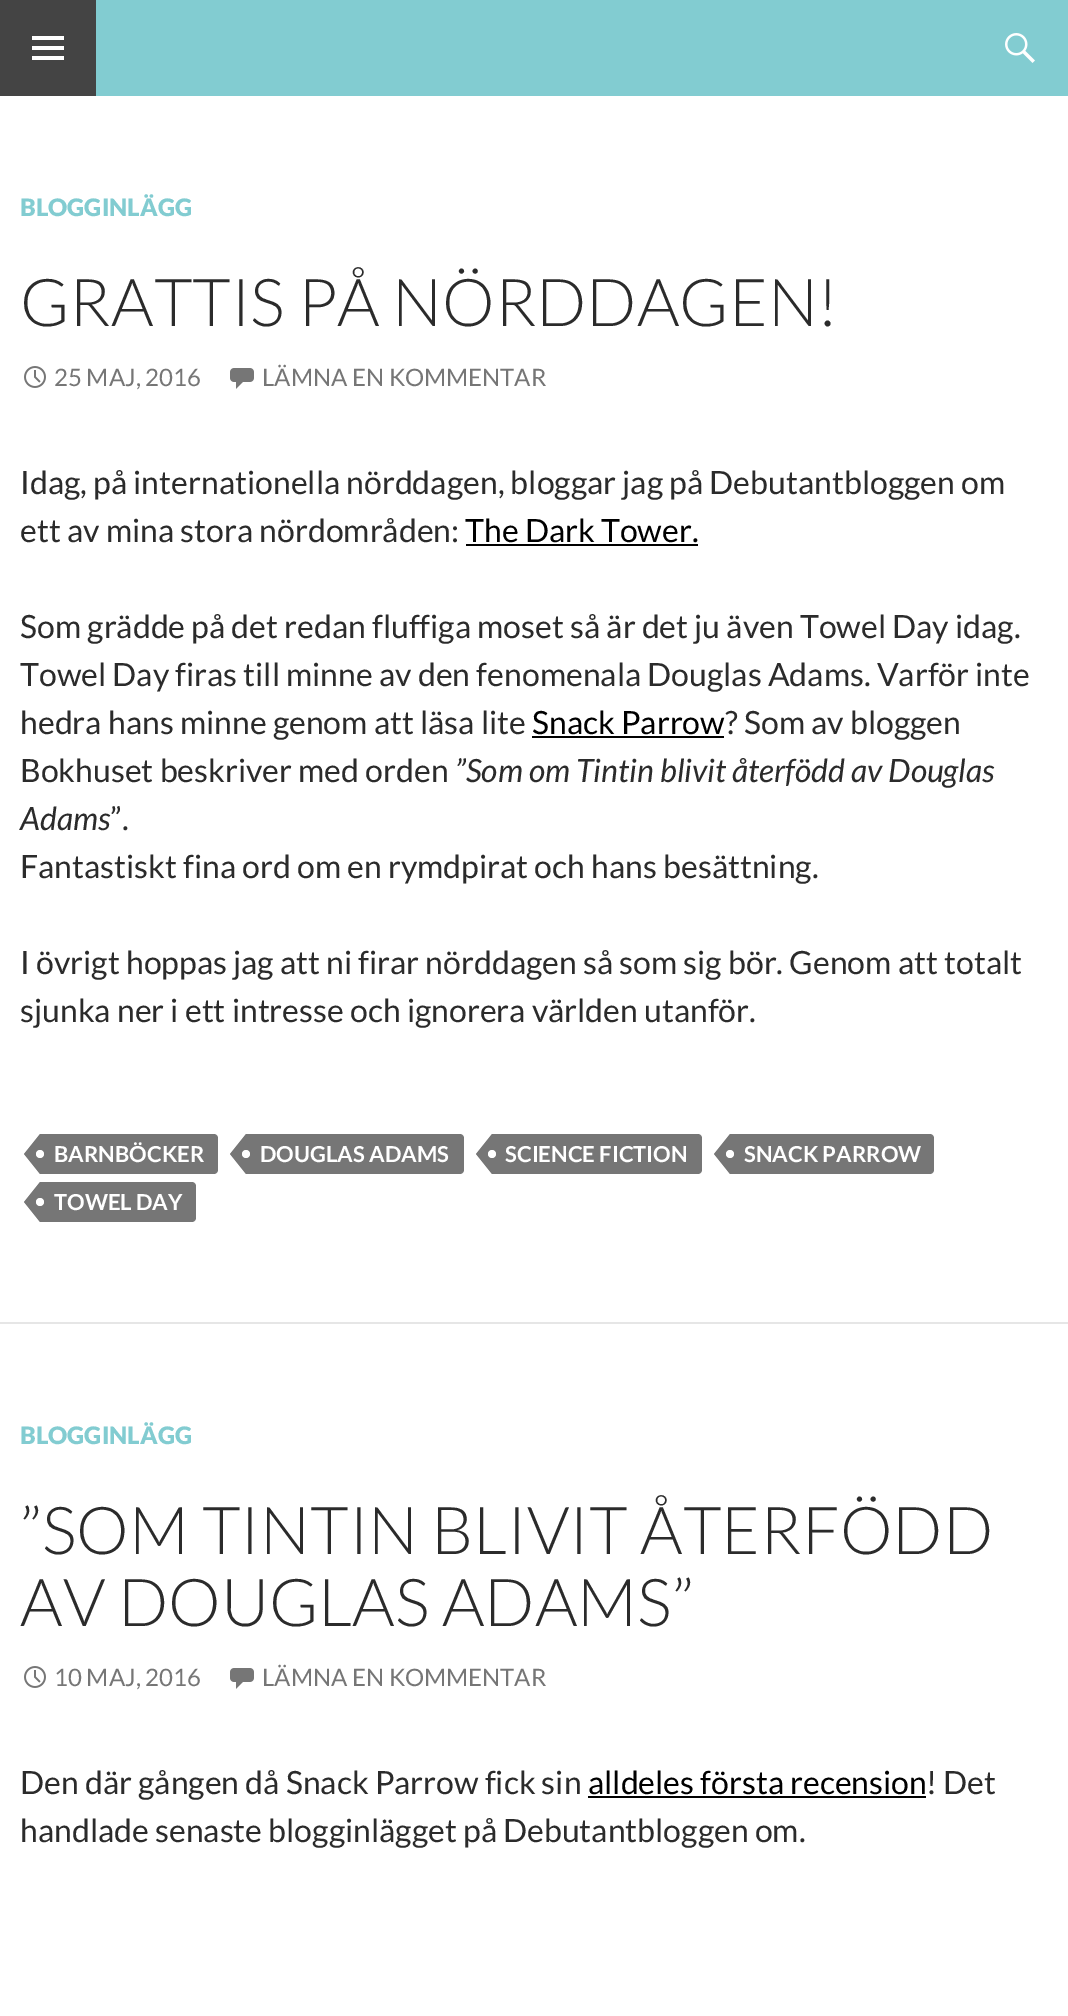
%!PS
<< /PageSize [1068 2016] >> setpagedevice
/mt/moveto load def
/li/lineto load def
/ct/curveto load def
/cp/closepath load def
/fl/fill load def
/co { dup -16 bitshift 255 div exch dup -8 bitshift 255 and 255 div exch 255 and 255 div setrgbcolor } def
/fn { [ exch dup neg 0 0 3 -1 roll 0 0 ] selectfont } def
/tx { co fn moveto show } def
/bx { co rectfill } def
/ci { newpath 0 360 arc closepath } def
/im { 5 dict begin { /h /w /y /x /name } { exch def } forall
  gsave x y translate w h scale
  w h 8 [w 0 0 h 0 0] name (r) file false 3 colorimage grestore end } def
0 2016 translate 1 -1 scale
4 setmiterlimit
0 0 1068 2016 16#FFFFFF bx
96 0 972 96 16#82CCD1 bx
0 0 96 96 16#444444 bx
(media/1.raw) 32 36 32 24 im
(media/2.raw) 1005 33 30 30 im
(media/3.raw) 24 366 22 22 im
(media/4.raw) 230 368 24 21 im
466 544 232 2 16#000000 bx
532 736 192 2 16#000000 bx
16#767676 co
40 1134 mt 214 1134 li 216 1134 218 1136 218 1138 ct 218 1170 li 218 1172 216 1174 214 1174 ct 40 1174 li cp fl
40 1134 mt 40 1174 li 24 1154 li cp fl
16#FFFFFF co
40 1154 4 ci fl
16#767676 co
246 1134 mt 460 1134 li 462 1134 464 1136 464 1138 ct 464 1170 li 464 1172 462 1174 460 1174 ct 246 1174 li cp fl
246 1134 mt 246 1174 li 230 1154 li cp fl
16#FFFFFF co
246 1154 4 ci fl
16#767676 co
492 1134 mt 698 1134 li 700 1134 702 1136 702 1138 ct 702 1170 li 702 1172 700 1174 698 1174 ct 492 1174 li cp fl
492 1134 mt 492 1174 li 476 1154 li cp fl
16#FFFFFF co
492 1154 4 ci fl
16#767676 co
730 1134 mt 930 1134 li 932 1134 934 1136 934 1138 ct 934 1170 li 934 1172 932 1174 930 1174 ct 730 1174 li cp fl
730 1134 mt 730 1174 li 714 1154 li cp fl
16#FFFFFF co
730 1154 4 ci fl
16#767676 co
40 1182 mt 192 1182 li 194 1182 196 1184 196 1186 ct 196 1218 li 196 1220 194 1222 192 1222 ct 40 1222 li cp fl
40 1182 mt 40 1222 li 24 1202 li cp fl
16#FFFFFF co
40 1202 4 ci fl
0 1322 1068 2 16#E6E6E6 bx
(media/3.raw) 24 1666 22 22 im
(media/4.raw) 230 1668 24 21 im
588 1796 338 2 16#000000 bx
(BLOGGINLÄGG) 20 216 /Lato-Black 24 16#82CCD1 tx
(GRATTIS PÅ NÖRDDAGEN!) 20 326 /Lato-Light 66 16#2B2B2B tx
(25 MAJ, 2016) 54 386 /Lato-Regular 24 16#767676 tx
(LÄMNA EN KOMMENTAR) 262 386 /Lato-Regular 24 16#767676 tx
(Idag, på internationella nörddagen, bloggar jag på Debutantbloggen om) 20 494 /Lato-Regular 32 16#2B2B2B tx
(ett av mina stora nördområden:) 20 542 /Lato-Regular 32 16#2B2B2B tx
(The Dark Tower.) 465 542 /Lato-Regular 32 16#000000 tx
(Som grädde på det redan fluffiga moset så är det ju även Towel Day idag.) 20 638 /Lato-Regular 32 16#2B2B2B tx
(Towel Day firas till minne av den fenomenala Douglas Adams. Varför inte) 20 686 /Lato-Regular 32 16#2B2B2B tx
(hedra hans minne genom att läsa lite) 20 734 /Lato-Regular 32 16#2B2B2B tx
(Snack Parrow) 532 734 /Lato-Regular 32 16#000000 tx
(? Som av bloggen) 725 734 /Lato-Regular 32 16#2B2B2B tx
(Bokhuset beskriver med orden) 20 782 /Lato-Regular 32 16#2B2B2B tx
(”Som om Tintin blivit återfödd av Douglas) 455 782 /Lato-Italic 32 16#2B2B2B tx
(Adams) 20 830 /Lato-Italic 32 16#2B2B2B tx
(”.) 110 830 /Lato-Regular 32 16#2B2B2B tx
(Fantastiskt fina ord om en rymdpirat och hans besättning.) 20 878 /Lato-Regular 32 16#2B2B2B tx
(I övrigt hoppas jag att ni firar nörddagen så som sig bör. Genom att totalt) 20 974 /Lato-Regular 32 16#2B2B2B tx
(sjunka ner i ett intresse och ignorera världen utanför.) 20 1022 /Lato-Regular 32 16#2B2B2B tx
(BARNBÖCKER) 54 1162 /Lato-Bold 22 16#FFFFFF tx
(DOUGLAS ADAMS) 260 1162 /Lato-Bold 22 16#FFFFFF tx
(SCIENCE FICTION) 505 1162 /Lato-Bold 22 16#FFFFFF tx
(SNACK PARROW) 744 1162 /Lato-Bold 22 16#FFFFFF tx
(TOWEL DAY) 54 1210 /Lato-Bold 22 16#FFFFFF tx
(BLOGGINLÄGG) 20 1444 /Lato-Black 24 16#82CCD1 tx
(”SOM TINTIN BLIVIT ÅTERFÖDD) 20 1554 /Lato-Light 66 16#2B2B2B tx
(AV DOUGLAS ADAMS”) 20 1626 /Lato-Light 66 16#2B2B2B tx
(10 MAJ, 2016) 54 1686 /Lato-Regular 24 16#767676 tx
(LÄMNA EN KOMMENTAR) 262 1686 /Lato-Regular 24 16#767676 tx
(Den där gången då Snack Parrow fick sin) 20 1794 /Lato-Regular 32 16#2B2B2B tx
(alldeles första recension) 588 1794 /Lato-Regular 32 16#000000 tx
(! Det) 926 1794 /Lato-Regular 32 16#2B2B2B tx
(handlade senaste blogginlägget på Debutantbloggen om.) 20 1842 /Lato-Regular 32 16#2B2B2B tx
showpage
